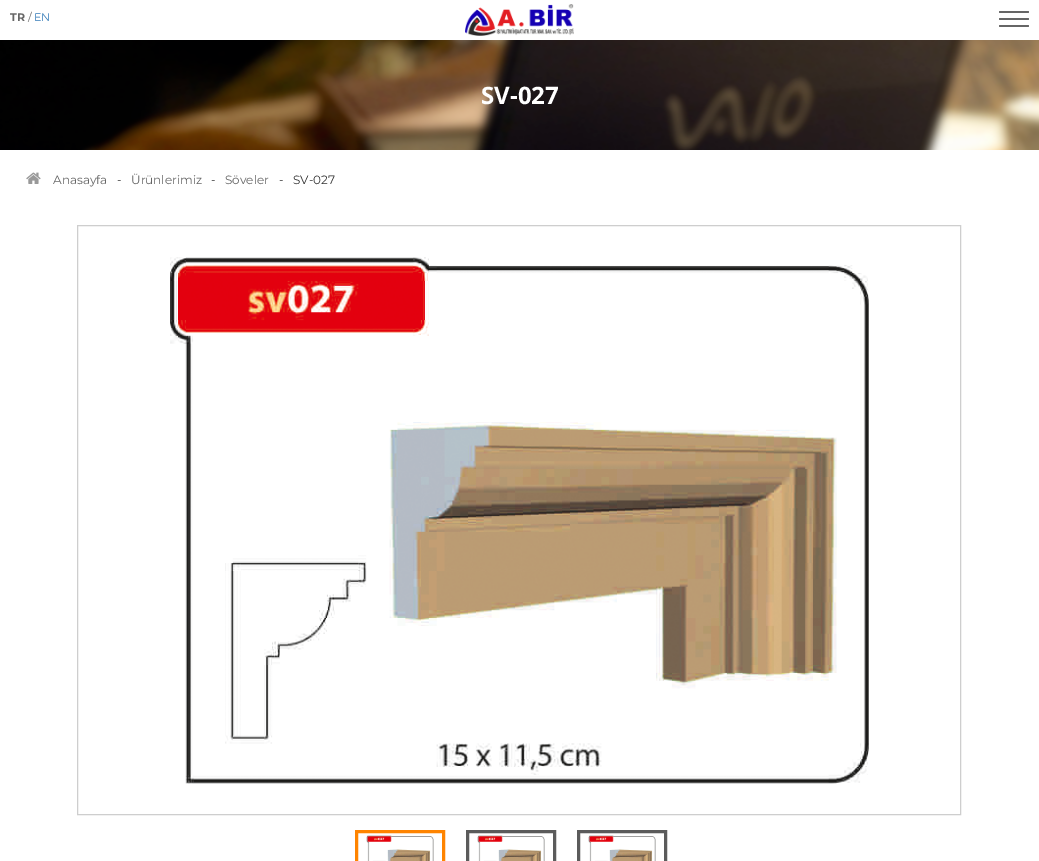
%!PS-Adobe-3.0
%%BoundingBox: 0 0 1039 861
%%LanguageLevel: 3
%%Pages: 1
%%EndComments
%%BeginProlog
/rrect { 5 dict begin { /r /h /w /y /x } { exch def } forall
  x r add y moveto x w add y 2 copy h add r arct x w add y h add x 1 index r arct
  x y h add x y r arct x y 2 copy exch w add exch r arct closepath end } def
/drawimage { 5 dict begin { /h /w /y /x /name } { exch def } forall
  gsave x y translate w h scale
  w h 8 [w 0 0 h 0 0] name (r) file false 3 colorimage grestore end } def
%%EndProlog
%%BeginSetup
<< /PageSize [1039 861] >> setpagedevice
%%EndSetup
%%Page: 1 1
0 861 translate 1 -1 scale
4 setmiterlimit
1 setgray
0 0 1039 861 rectfill
(images/1.raw) 465 4 109 32 drawimage
0.4 setgray
999 18 30 2 1 rrect fill
999 11 30 2 1 rrect fill
999 25 30 2 1 rrect fill
(images/2.raw) 0 40 1039 110 drawimage
(images/3.raw) 26 172 15 12 drawimage
0.808 setgray
77.5 225.5 883 589 rectstroke
(images/4.raw) 170 257 699 527 drawimage
1 0.518 0 setrgbcolor
3 setlinewidth
356.5 831.5 87 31 rectstroke
0.357 setgray
467.5 831.5 87 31 rectstroke
578.5 831.5 87 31 rectstroke
(images/5.raw) 366 835 68 26 drawimage
(images/6.raw) 477 835 68 26 drawimage
(images/5.raw) 588 835 68 26 drawimage
/Montserrat-Bold [11 0 0 -11 0 0] selectfont
0.4 setgray
10 21 moveto (TR) show
/Montserrat-Regular [11 0 0 -11 0 0] selectfont
28 21 moveto (/) show
0.2 0.478 0.718 setrgbcolor
34 21 moveto (EN) show
/OpenSans-Bold [24 0 0 -24 0 0] selectfont
1 setgray
481 104 moveto (SV-027) show
/Montserrat-Regular [12 0 0 -12 0 0] selectfont
0.4 setgray
53 184 moveto (Anasayfa) show
0.2 setgray
117 184 moveto (-) show
0.4 setgray
131 184 moveto (Ürünlerimiz) show
0.2 setgray
211 184 moveto (-) show
0.4 setgray
225 184 moveto (Söveler) show
0.2 setgray
279 184 moveto (-) show
293 184 moveto (SV-027) show
showpage
%%EOF
